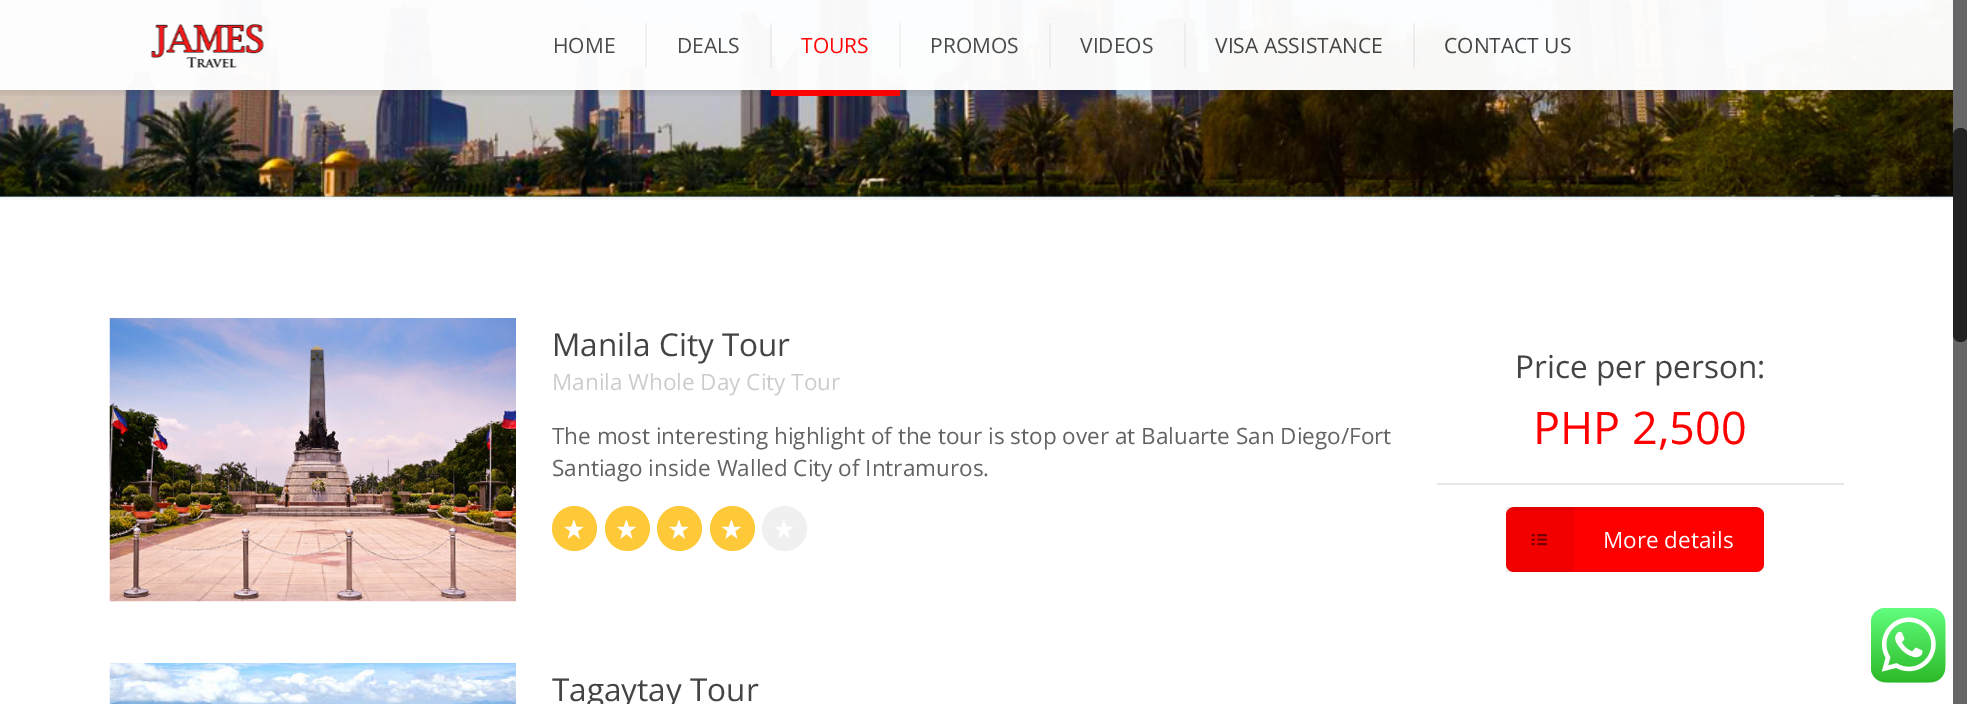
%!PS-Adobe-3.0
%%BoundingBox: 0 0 1967 704
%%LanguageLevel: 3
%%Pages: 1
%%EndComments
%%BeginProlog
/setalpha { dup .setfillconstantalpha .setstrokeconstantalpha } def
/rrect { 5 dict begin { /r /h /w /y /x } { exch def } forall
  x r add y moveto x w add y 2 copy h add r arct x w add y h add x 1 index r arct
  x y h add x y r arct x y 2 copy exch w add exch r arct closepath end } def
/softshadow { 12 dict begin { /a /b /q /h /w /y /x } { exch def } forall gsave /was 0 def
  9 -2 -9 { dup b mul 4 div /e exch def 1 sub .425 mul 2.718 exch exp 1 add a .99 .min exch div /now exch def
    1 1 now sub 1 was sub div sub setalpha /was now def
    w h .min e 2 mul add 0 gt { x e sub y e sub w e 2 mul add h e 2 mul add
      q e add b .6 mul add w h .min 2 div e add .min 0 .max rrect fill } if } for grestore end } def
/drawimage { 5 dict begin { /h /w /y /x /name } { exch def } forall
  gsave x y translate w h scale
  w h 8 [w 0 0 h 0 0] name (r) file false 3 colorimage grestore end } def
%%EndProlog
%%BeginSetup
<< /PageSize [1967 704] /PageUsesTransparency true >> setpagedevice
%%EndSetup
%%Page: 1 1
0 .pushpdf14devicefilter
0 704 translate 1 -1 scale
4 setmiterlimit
1 setgray
0 0 1967 704 rectfill
0.58 0.769 0.89 setrgbcolor
0 196 1953 1 rectfill
(images/1.raw) 0 0 1953 197 drawimage
(images/2.raw) 909 9 8 14 drawimage
(images/3.raw) 0 196 1953 4 drawimage
gsave
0 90 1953 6 rectclip
0 setgray
0 3 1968 90 0 4 0.1 softshadow
grestore
0.97 setalpha
1 setgray
0 0 1953 90 rectfill
1 setalpha
(images/4.raw) 150 24 114 44 drawimage
0.945 setgray
645 23 2 45 rectfill
0.05 setalpha
0 setgray
770 23 2 45 rectfill
1 setalpha
0.941 0.945 0.945 setrgbcolor
899 23 2 45 rectfill
0.97 setalpha
1 0 0 setrgbcolor
771 90 129 6 rectfill
1 setalpha
0.929 setgray
1049 23 2 45 rectfill
1184 23 2 45 rectfill
0.05 setalpha
0 setgray
1413 23 2 45 rectfill
1 setalpha
(images/5.raw) 109 318 407 284 drawimage
0.996 0.788 0.224 setrgbcolor
newpath 574.5 528.5 22.5 0 360 arc closepath fill
(images/6.raw) 564 519 20 20 drawimage
newpath 627.5 528.5 22.5 0 360 arc closepath fill
(images/7.raw) 616 519 21 20 drawimage
newpath 679.5 528.5 22.5 0 360 arc closepath fill
(images/6.raw) 669 519 20 20 drawimage
newpath 732.5 528.5 22.5 0 360 arc closepath fill
(images/7.raw) 721 519 21 20 drawimage
0.941 setgray
newpath 784.5 528.5 22.5 0 360 arc closepath fill
(images/8.raw) 775 520 18 19 drawimage
0.902 setgray
1437 483 407 2 rectfill
1 0 0 setrgbcolor
1506 507 258 65 8 rrect fill
(images/9.raw) 1508 507 254 4 drawimage
0.03 setalpha
0 setgray
2 setlinewidth
1507 508 256 63 rectstroke
0.05 setalpha
1506 507 68 65 rectfill
1 setalpha
(images/10.raw) 1531 534 17 12 drawimage
(images/11.raw) 109 663 407 41 drawimage
(images/12.raw) 1871 608 75 75 drawimage
0.4 setgray
1953 0 14 704 rectfill
0.133 setgray
1953 128 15 214 7.5 rrect fill
/OpenSans-Regular [21 0 0 -21 0 0] selectfont
0.29 setgray
553 53 moveto (HOME) show
677 53 moveto (DEALS) show
1 0.027 0.031 setrgbcolor
801 53 moveto (TOURS) show
0.29 setgray
930 53 moveto (PROMOS) show
1080 53 moveto (VIDEOS) show
0.267 setgray
1215 53 moveto (VISA ASSISTANCE) show
1444 53 moveto (CONTACT US) show
/OpenSans-Regular [31.5 0 0 -31.5 0 0] selectfont
552 356 moveto (Manila City Tour) show
/OpenSans-Regular [22.5 0 0 -22.5 0 0] selectfont
0.8 setgray
552 390 moveto (Manila Whole Day City Tour) show
0.384 setgray
552 444 moveto (The most interesting highlight of the tour is stop over at Baluarte San Diego/Fort) show
552 476 moveto (Santiago inside Walled City of Intramuros.) show
/OpenSans-Regular [31.5 0 0 -31.5 0 0] selectfont
0.267 setgray
1515 378 moveto (Price per person:) show
/OpenSans-Regular [45 0 0 -45 0 0] selectfont
1 0 0 setrgbcolor
1533 444 moveto (PHP 2,500) show
/OpenSans-Regular [22.5 0 0 -22.5 0 0] selectfont
1 setgray
1603 548 moveto (More details) show
/OpenSans-Regular [31.5 0 0 -31.5 0 0] selectfont
0.267 setgray
552 701 moveto (Tagaytay Tour) show
.poppdf14devicefilter showpage
%%EOF
